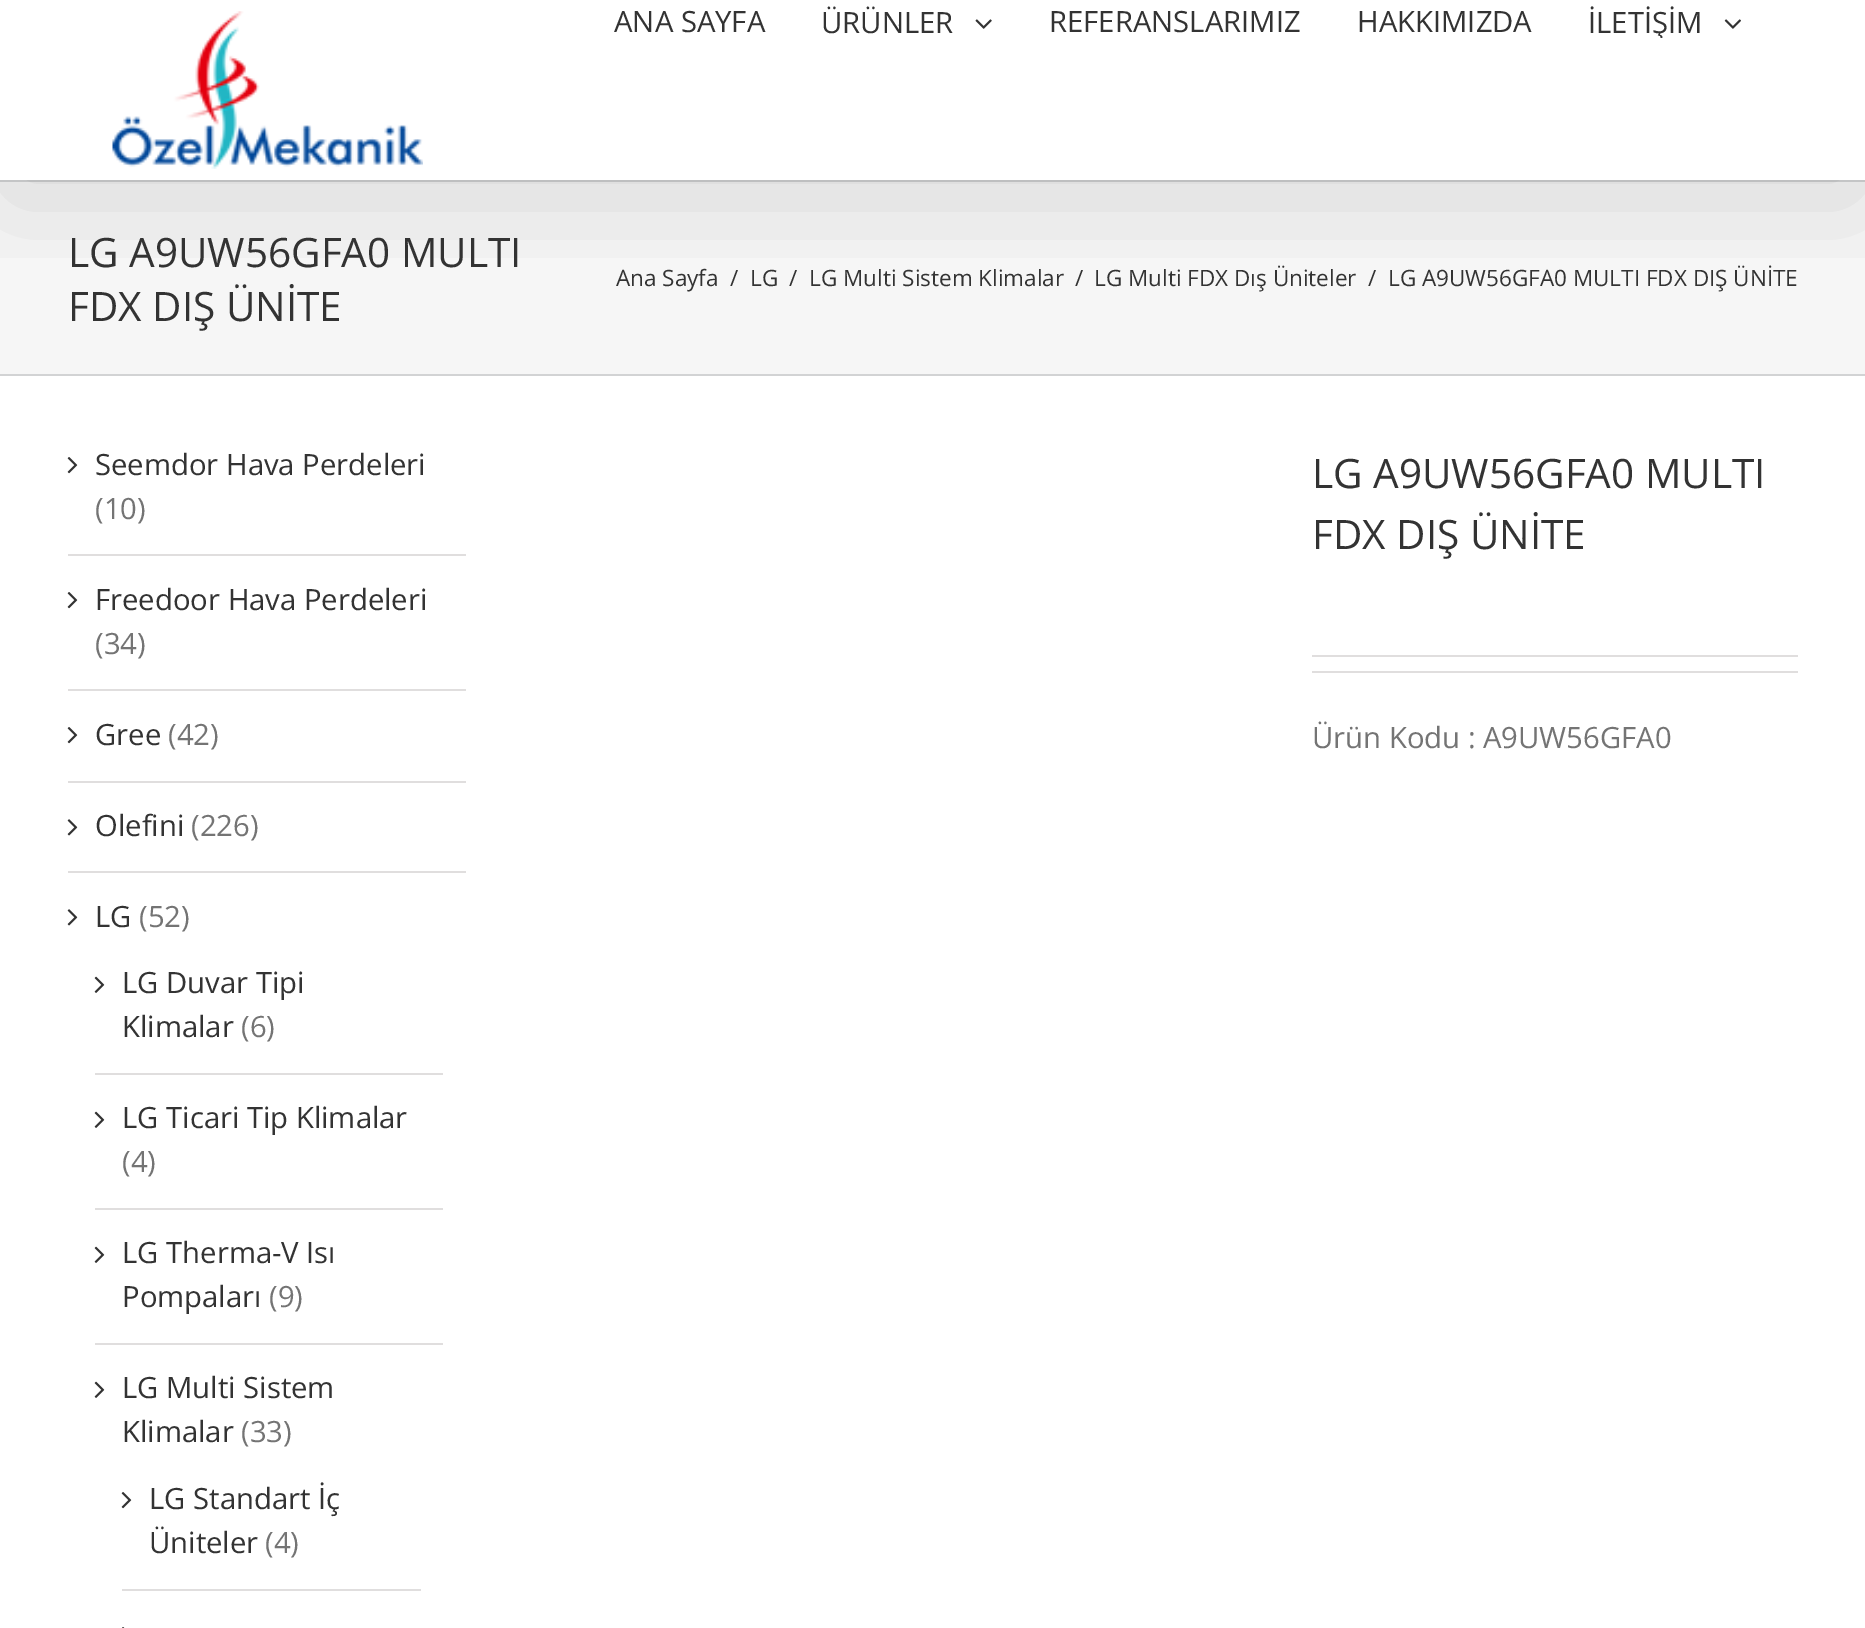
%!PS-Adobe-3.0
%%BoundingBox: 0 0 1865 1628
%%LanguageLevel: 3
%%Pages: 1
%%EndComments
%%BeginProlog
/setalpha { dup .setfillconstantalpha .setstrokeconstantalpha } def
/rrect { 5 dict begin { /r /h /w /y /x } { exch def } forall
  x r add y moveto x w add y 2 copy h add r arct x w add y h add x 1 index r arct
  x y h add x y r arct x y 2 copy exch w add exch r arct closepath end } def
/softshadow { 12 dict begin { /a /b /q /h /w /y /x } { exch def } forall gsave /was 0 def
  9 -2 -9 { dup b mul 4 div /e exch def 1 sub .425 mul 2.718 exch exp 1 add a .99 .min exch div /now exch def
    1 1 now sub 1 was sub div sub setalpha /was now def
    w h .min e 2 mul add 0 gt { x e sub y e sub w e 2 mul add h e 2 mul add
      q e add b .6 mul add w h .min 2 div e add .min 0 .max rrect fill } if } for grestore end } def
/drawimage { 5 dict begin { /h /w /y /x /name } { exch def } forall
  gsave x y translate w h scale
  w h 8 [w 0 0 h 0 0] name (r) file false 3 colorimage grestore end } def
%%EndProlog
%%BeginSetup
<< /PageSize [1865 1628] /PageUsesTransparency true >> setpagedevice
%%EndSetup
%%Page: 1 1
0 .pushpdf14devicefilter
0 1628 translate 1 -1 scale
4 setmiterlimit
1 setgray
0 0 1865 1628 rectfill
0.965 setgray
0 182 1865 192 rectfill
0.824 0.827 0.831 setrgbcolor
0 180 1865 2 rectfill
gsave
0 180 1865 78 rectclip
0 setgray
5 27 1856 171 0 56 0.14 softshadow
grestore
(images/1.raw) 112 11 311 158 drawimage
(images/2.raw) 975 19 17 10 drawimage
(images/3.raw) 1724 19 17 10 drawimage
0 374 1865 2 rectfill
0.878 0.871 0.871 setrgbcolor
68 554 398 2 rectfill
(images/4.raw) 67 457 11 17 drawimage
68 689 398 2 rectfill
(images/4.raw) 67 592 11 17 drawimage
68 781 398 2 rectfill
(images/4.raw) 67 727 11 17 drawimage
68 871 398 2 rectfill
(images/5.raw) 67 819 11 17 drawimage
(images/5.raw) 67 909 11 17 drawimage
95 1073 348 2 rectfill
(images/6.raw) 94 976 11 17 drawimage
95 1208 348 2 rectfill
(images/6.raw) 94 1111 11 17 drawimage
95 1343 348 2 rectfill
(images/6.raw) 94 1246 11 17 drawimage
(images/6.raw) 94 1381 11 17 drawimage
122 1589 299 2 rectfill
(images/4.raw) 121 1492 11 17 drawimage
(images/7.raw) 122 1627 3 1 drawimage
1312 655 486 2 rectfill
1312 671 486 2 rectfill
/OpenSans-Regular [29.25 0 0 -29.25 0 0] selectfont
0.2 setgray
614 32 moveto (ANA SAYFA) show
821 33 moveto (ÜRÜNLER) show
1049 32 moveto (REFERANSLARIMIZ) show
1357 32 moveto (HAKKIMIZDA) show
gsave
1589 0 209 38 rectclip
1588 33 moveto (İLETİŞİM) show
grestore
/OpenSans-Regular [40.5 0 0 -40.5 0 0] selectfont
68 267 moveto (LG A9UW56GFA0 MULTI) show
68 321 moveto (FDX DIŞ ÜNİTE) show
/OpenSans-Regular [22.5 0 0 -22.5 0 0] selectfont
616 286 moveto (Ana Sayfa) show
730 286 moveto (/) show
750 286 moveto (LG) show
789 286 moveto (/) show
809 286 moveto (LG Multi Sistem Klimalar) show
1075 286 moveto (/) show
1094 286 moveto (LG Multi FDX Dış Üniteler) show
1368 286 moveto (/) show
1388 286 moveto (LG A9UW56GFA0 MULTI FDX DIŞ ÜNİTE) show
/OpenSans-Regular [29.25 0 0 -29.25 0 0] selectfont
95 475 moveto (Seemdor Hava Perdeleri) show
0.455 setgray
95 519 moveto (\(10\)) show
0.2 setgray
95 610 moveto (Freedoor Hava Perdeleri) show
0.455 setgray
95 654 moveto (\(34\)) show
0.2 setgray
95 745 moveto (Gree) show
0.455 setgray
168 745 moveto (\(42\)) show
0.2 setgray
95 836 moveto (Olefini) show
0.455 setgray
191 836 moveto (\(226\)) show
0.2 setgray
95 927 moveto (LG) show
0.455 setgray
139 927 moveto (\(52\)) show
0.2 setgray
122 993 moveto (LG Duvar Tipi) show
122 1037 moveto (Klimalar) show
0.455 setgray
241 1037 moveto (\(6\)) show
0.2 setgray
122 1128 moveto (LG Ticari Tip Klimalar) show
0.455 setgray
122 1172 moveto (\(4\)) show
0.2 setgray
122 1263 moveto (LG Therma-V Isı) show
122 1307 moveto (Pompaları) show
0.455 setgray
269 1307 moveto (\(9\)) show
0.2 setgray
122 1398 moveto (LG Multi Sistem) show
122 1442 moveto (Klimalar) show
0.455 setgray
241 1442 moveto (\(33\)) show
0.2 setgray
149 1509 moveto (LG Standart İç) show
149 1553 moveto (Üniteler) show
0.455 setgray
265 1553 moveto (\(4\)) show
/OpenSans-Regular [40.5 0 0 -40.5 0 0] selectfont
0.2 setgray
1312 488 moveto (LG A9UW56GFA0 MULTI) show
1312 549 moveto (FDX DIŞ ÜNİTE) show
/OpenSans-Regular [29.25 0 0 -29.25 0 0] selectfont
0.455 setgray
1312 748 moveto (Ürün Kodu : A9UW56GFA0) show
.poppdf14devicefilter showpage
%%EOF
